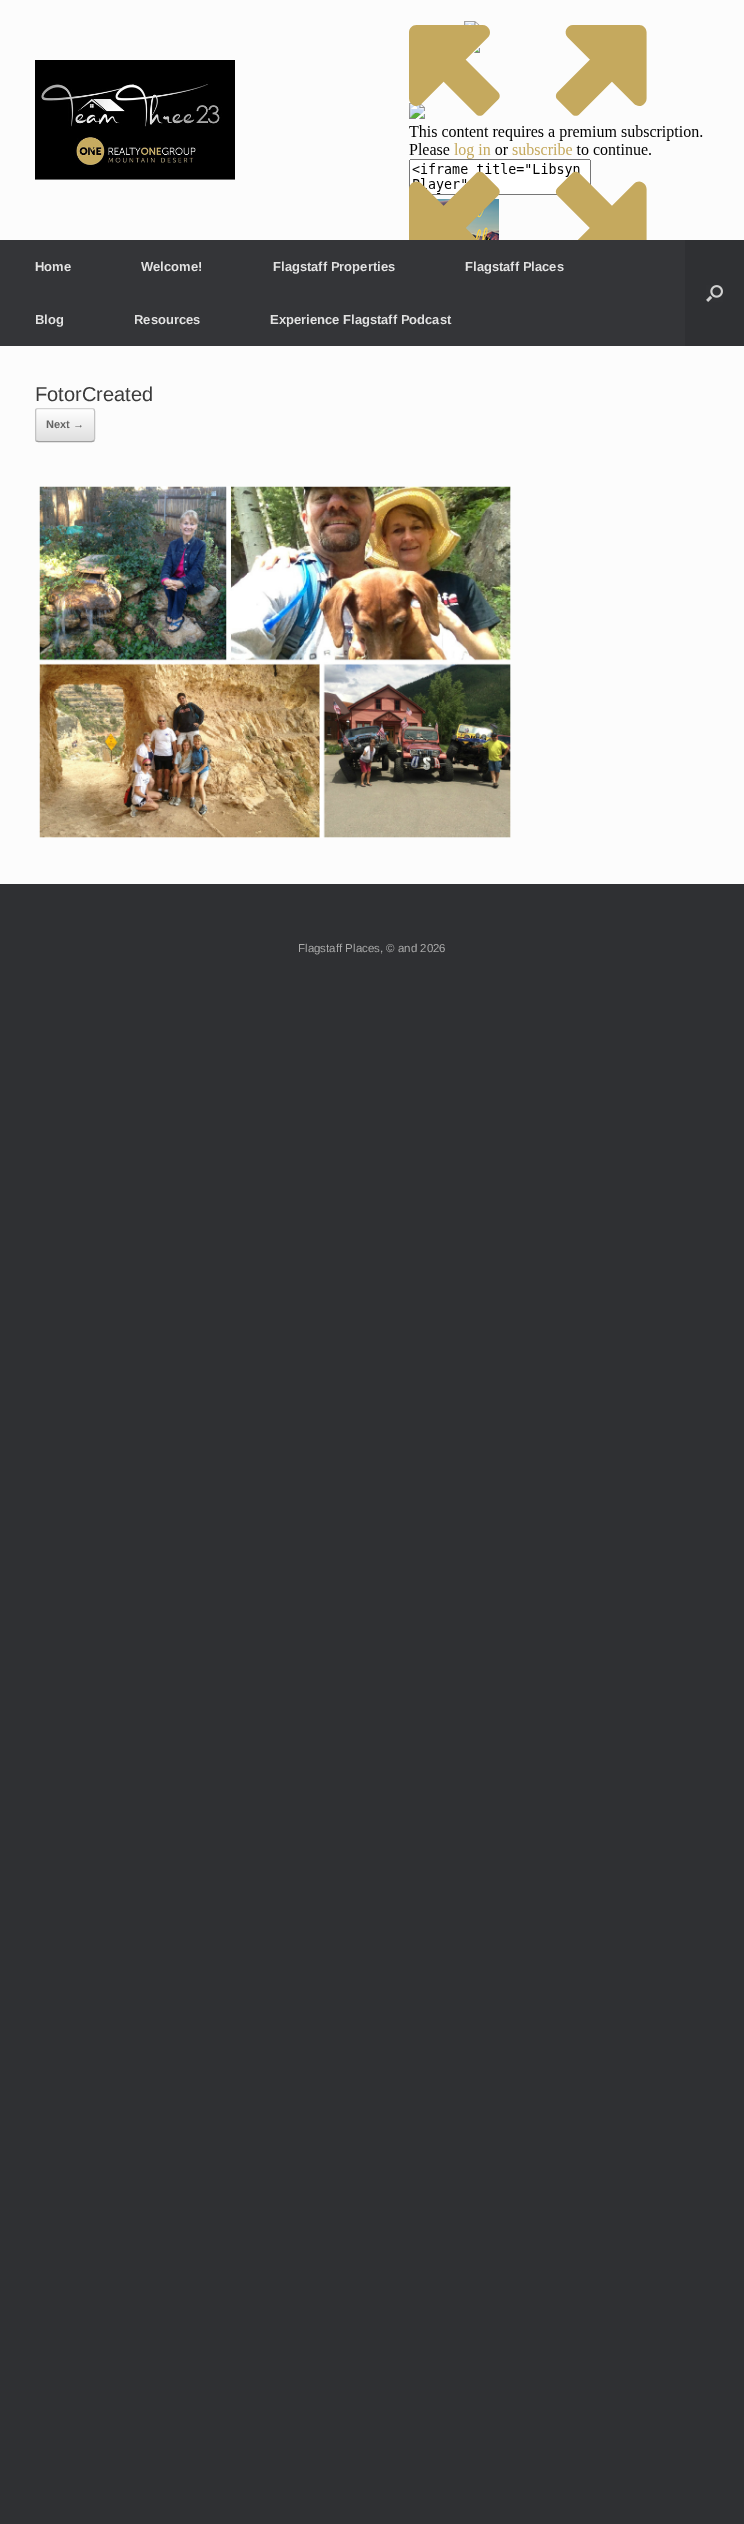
%!PS-Adobe-3.0
%%BoundingBox: 0 0 744 2524
%%LanguageLevel: 3
%%Pages: 1
%%EndComments
%%BeginProlog
/rrect { 5 dict begin { /r /h /w /y /x } { exch def } forall
  x r add y moveto x w add y 2 copy h add r arct x w add y h add x 1 index r arct
  x y h add x y r arct x y 2 copy exch w add exch r arct closepath end } def
/drawimage { 5 dict begin { /h /w /y /x /name } { exch def } forall
  gsave x y translate w h scale
  w h 8 [w 0 0 h 0 0] name (r) file false 3 colorimage grestore end } def
%%EndProlog
%%BeginSetup
<< /PageSize [744 2524] >> setpagedevice
%%EndSetup
%%Page: 1 1
0 2524 translate 1 -1 scale
4 setmiterlimit
0.184 0.188 0.2 setrgbcolor
0 0 744 2524 rectfill
0.988 setgray
0 0 744 240 rectfill
(images/1.raw) 35 60 200 120 drawimage
(images/2.raw) 409 21 294 219 drawimage
0.204 0.208 0.22 setrgbcolor
0 240 685 106 rectfill
(images/3.raw) 706 285 17 17 drawimage
0.988 setgray
0 346 744 538 rectfill
gsave
35 408 60 34 3 rrect clip newpath
gsave newpath 35 409 moveto 95 409 lineto 95 441 lineto 35 441 lineto closepath clip newpath
<< /ShadingType 2 /ColorSpace /DeviceRGB /Coords [36 441 36 409] /Extend [true true] /Function << /FunctionType 2 /Domain [0 1] /C0 [0.875 0.875 0.875] /C1 [1 1 1] /N 1 >> >> shfill grestore
grestore
0.824 setgray
newpath 36 409 moveto 38 408.5 lineto 92 408.5 lineto 94 409 lineto stroke
0.765 setgray
newpath 94 409 moveto 94 409.5 94.5 410.5 94.5 411 curveto 94.5 439 lineto 94.5 439.5 94 440.5 94 441 curveto stroke
0.624 setgray
newpath 94 441 moveto 92 441.5 lineto 38 441.5 lineto 36 441 lineto stroke
0.765 setgray
newpath 36 441 moveto 36 440.5 35.5 439.5 35.5 439 curveto 35.5 411 lineto 35.5 410.5 36 409.5 36 409 curveto stroke
(images/4.raw) 39 486 472 352 drawimage
/LiberationSans-Bold [13 0 0 -13 0 0] selectfont
0.886 setgray
35 271 moveto (Home) show
141 271 moveto (Welcome!) show
273 271 moveto (Flagstaff Properties) show
465 271 moveto (Flagstaff Places) show
35 324 moveto (Blog) show
134 324 moveto (Resources) show
270 324 moveto (Experience Flagstaff Podcast) show
/LiberationSans-Regular [20 0 0 -20 0 0] selectfont
0.231 setgray
35 401 moveto (FotorCreated) show
/LiberationSans-Bold [11 0 0 -11 0 0] selectfont
0.392 setgray
46 428 moveto (Next →) show
/LiberationSans-Regular [11.5 0 0 -11.5 0 0] selectfont
0.667 setgray
298 952 moveto (Flagstaff Places, © and 2026) show
showpage
%%EOF
